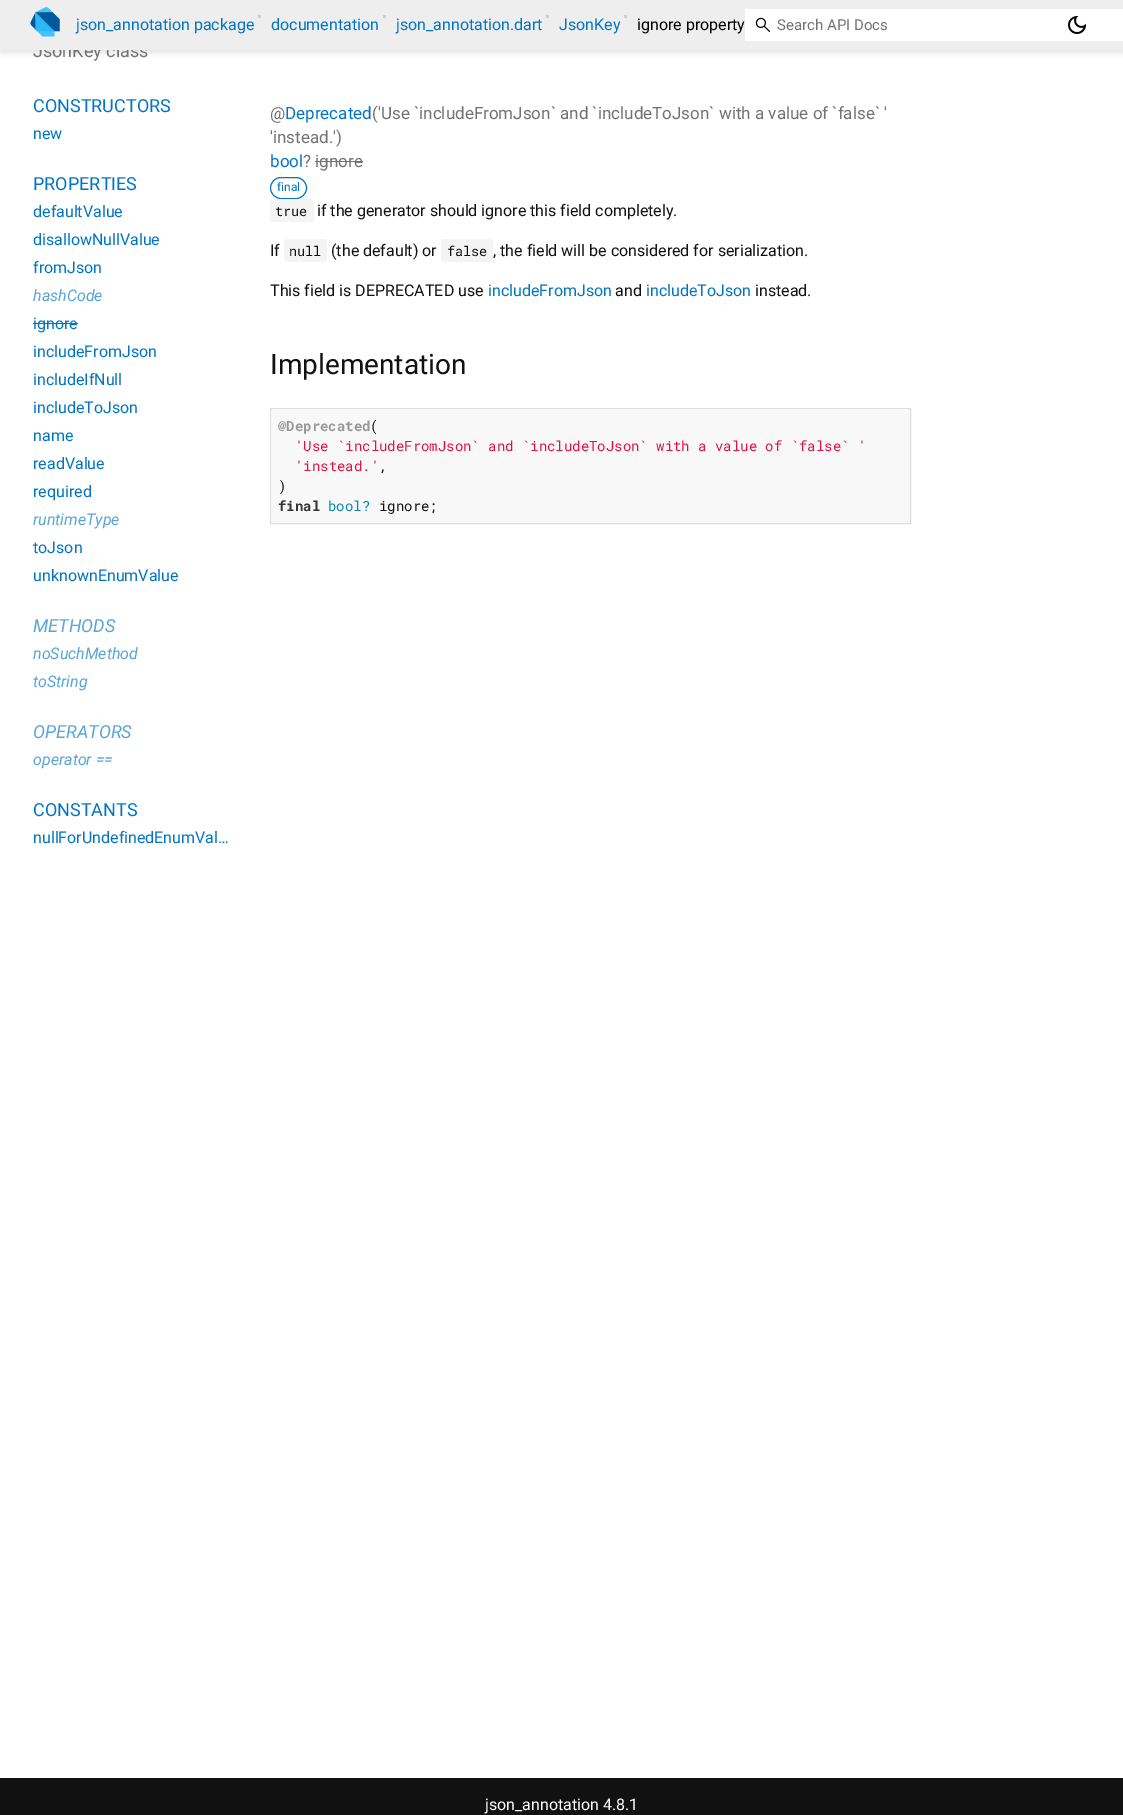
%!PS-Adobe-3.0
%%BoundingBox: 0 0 1123 1815
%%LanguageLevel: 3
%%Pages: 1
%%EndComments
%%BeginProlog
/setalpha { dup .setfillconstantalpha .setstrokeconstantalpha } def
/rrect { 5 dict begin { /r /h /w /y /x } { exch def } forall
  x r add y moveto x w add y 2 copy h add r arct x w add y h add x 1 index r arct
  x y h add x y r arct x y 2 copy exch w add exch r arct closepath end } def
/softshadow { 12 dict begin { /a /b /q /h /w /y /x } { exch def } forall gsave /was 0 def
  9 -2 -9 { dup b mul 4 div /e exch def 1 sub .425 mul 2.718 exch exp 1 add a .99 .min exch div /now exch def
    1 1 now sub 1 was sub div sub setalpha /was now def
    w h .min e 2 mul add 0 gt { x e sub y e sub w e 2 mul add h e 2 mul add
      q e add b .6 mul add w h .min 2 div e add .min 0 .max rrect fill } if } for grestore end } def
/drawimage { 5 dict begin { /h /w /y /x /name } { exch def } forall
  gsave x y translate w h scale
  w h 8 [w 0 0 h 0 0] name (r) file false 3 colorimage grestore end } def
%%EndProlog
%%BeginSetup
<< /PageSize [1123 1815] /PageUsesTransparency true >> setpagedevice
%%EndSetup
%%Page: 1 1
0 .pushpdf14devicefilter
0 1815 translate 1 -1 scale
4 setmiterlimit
1 setgray
0 0 1123 1815 rectfill
0 setgray
0 3 1123 50 0 2.5 0.1 softshadow
0.004 0.459 0.761 setrgbcolor
33 323 45 1 rectfill
0.447 setgray
315 161 48 1 rectfill
0.004 0.459 0.761 setrgbcolor
270.5 177.5 36 21 10.5 rrect stroke
0.957 setgray
270 199 44 23 3 rrect fill
284 239 43 23 3 rrect fill
441 239 52 23 3 rrect fill
0.933 setgray
newpath 270.5 408.5 moveto 910.5 408.5 lineto 910.5 523.5 lineto 270.5 523.5 lineto closepath gsave fill grestore
0.867 setgray
stroke
0.973 setgray
271 409 639 114 3 rrect fill
0.067 setgray
0 1778 1123 37 rectfill
/Roboto-Regular [18 0 0 -18 0 0] selectfont
0.447 setgray
33 57 moveto (JsonKey class) show
0.933 setgray
0 0 1123 50 rectfill
1 setgray
745 9 378 32 rectfill
(images/3.raw) 1068 16 18 18 drawimage
/Roboto-Regular [15 0 0 -15 0 0] selectfont
0.447 setgray
777 30 moveto (Search API Docs) show
(images/2.raw) 755 17 16 15 drawimage
/Roboto-Regular [16 0 0 -16 0 0] selectfont
0 setgray
637 30 moveto (ignore property) show
0.812 setgray
624 15 3 3 rectfill
0.004 0.459 0.761 setrgbcolor
559 30 moveto (JsonKey) show
0.812 setgray
546 15 3 3 rectfill
0.004 0.459 0.761 setrgbcolor
396 30 moveto (json_annotation.dart) show
0.812 setgray
383 15 3 3 rectfill
0.004 0.459 0.761 setrgbcolor
271 30 moveto (documentation) show
0.812 setgray
258 15 3 3 rectfill
0.004 0.459 0.761 setrgbcolor
76 30 moveto (json_annotation package) show
(images/1.raw) 30 7 30 30 drawimage
/Roboto-Regular [18 0 0 -18 0 0] selectfont
33 112 moveto (CONSTRUCTORS) show
/Roboto-Regular [16 0 0 -16 0 0] selectfont
33 139 moveto (new) show
/Roboto-Regular [18 0 0 -18 0 0] selectfont
33 190 moveto (PROPERTIES) show
/Roboto-Regular [16 0 0 -16 0 0] selectfont
33 217 moveto (defaultValue) show
33 245 moveto (disallowNullValue) show
33 273 moveto (fromJson) show
/Roboto-Italic [16 0 0 -16 0 0] selectfont
0.353 0.647 0.843 setrgbcolor
33 301 moveto (hashCode) show
/Roboto-Regular [16 0 0 -16 0 0] selectfont
0.004 0.459 0.761 setrgbcolor
33 329 moveto (ignore) show
33 357 moveto (includeFromJson) show
33 385 moveto (includeIfNull) show
33 413 moveto (includeToJson) show
33 441 moveto (name) show
33 469 moveto (readValue) show
33 497 moveto (required) show
/Roboto-Italic [16 0 0 -16 0 0] selectfont
0.353 0.647 0.843 setrgbcolor
33 525 moveto (runtimeType) show
/Roboto-Regular [16 0 0 -16 0 0] selectfont
0.004 0.459 0.761 setrgbcolor
33 553 moveto (toJson) show
33 581 moveto (unknownEnumValue) show
/Roboto-Italic [18 0 0 -18 0 0] selectfont
0.353 0.647 0.843 setrgbcolor
33 632 moveto (METHODS) show
/Roboto-Italic [16 0 0 -16 0 0] selectfont
33 659 moveto (noSuchMethod) show
33 687 moveto (toString) show
/Roboto-Italic [18 0 0 -18 0 0] selectfont
33 738 moveto (OPERATORS) show
/Roboto-Italic [16 0 0 -16 0 0] selectfont
33 765 moveto (operator ==) show
/Roboto-Regular [18 0 0 -18 0 0] selectfont
0.004 0.459 0.761 setrgbcolor
33 816 moveto (CONSTANTS) show
/Roboto-Regular [16 0 0 -16 0 0] selectfont
33 843 moveto (nullForUndefinedEnumVal…) show
/Roboto-Regular [17 0 0 -17 0 0] selectfont
0.447 setgray
270 119 moveto (@) show
0.004 0.459 0.761 setrgbcolor
285 119 moveto (Deprecated) show
0.447 setgray
372 119 moveto (\('Use `includeFromJson` and `includeToJson` with a value of `false` ') show
270 143 moveto ('instead.'\)) show
0.004 0.459 0.761 setrgbcolor
270 167 moveto (bool) show
0.447 setgray
303 167 moveto (? ignore) show
/Roboto-Regular [12 0 0 -12 0 0] selectfont
0.004 0.459 0.761 setrgbcolor
277 191 moveto (final) show
/RobotoMono-Regular [13.5 0 0 -13.5 0 0] selectfont
0.067 setgray
275 216 moveto (true) show
/Roboto-Regular [16 0 0 -16 0 0] selectfont
317 216 moveto (if the generator should ignore this field completely.) show
270 256 moveto (If) show
/RobotoMono-Regular [13.5 0 0 -13.5 0 0] selectfont
289 256 moveto (null) show
/Roboto-Regular [16 0 0 -16 0 0] selectfont
331 256 moveto (\(the default\) or) show
/RobotoMono-Regular [13.5 0 0 -13.5 0 0] selectfont
447 256 moveto (false) show
/Roboto-Regular [16 0 0 -16 0 0] selectfont
493 256 moveto (, the field will be considered for serialization.) show
270 296 moveto (This field is DEPRECATED use) show
0.004 0.459 0.761 setrgbcolor
488 296 moveto (includeFromJson) show
0.067 setgray
615 296 moveto (and) show
0.004 0.459 0.761 setrgbcolor
646 296 moveto (includeToJson) show
0.067 setgray
755 296 moveto (instead.) show
/Roboto-Regular [28 0 0 -28 0 0] selectfont
270 374 moveto (Implementation) show
/RobotoMono-Bold [14 0 0 -14 0 0] selectfont
0.6 setgray
278 431 moveto (@Deprecated) show
/RobotoMono-Regular [14 0 0 -14 0 0] selectfont
0.067 setgray
370 431 moveto (\() show
0.867 0.067 0.267 setrgbcolor
295 451 moveto ('Use `includeFromJson` and `includeToJson` with a value of `false` ') show
295 471 moveto ('instead.') show
0.067 setgray
379 471 moveto (,) show
278 491 moveto (\)) show
/RobotoMono-Bold [14 0 0 -14 0 0] selectfont
0.2 setgray
278 511 moveto (final) show
/RobotoMono-Regular [14 0 0 -14 0 0] selectfont
0 0.525 0.702 setrgbcolor
328 511 moveto (bool?) show
0.067 setgray
379 511 moveto (ignore;) show
/Roboto-Regular [16 0 0 -16 0 0] selectfont
1 setgray
485 1810 moveto (json_annotation 4.8.1) show
.poppdf14devicefilter showpage
%%EOF
